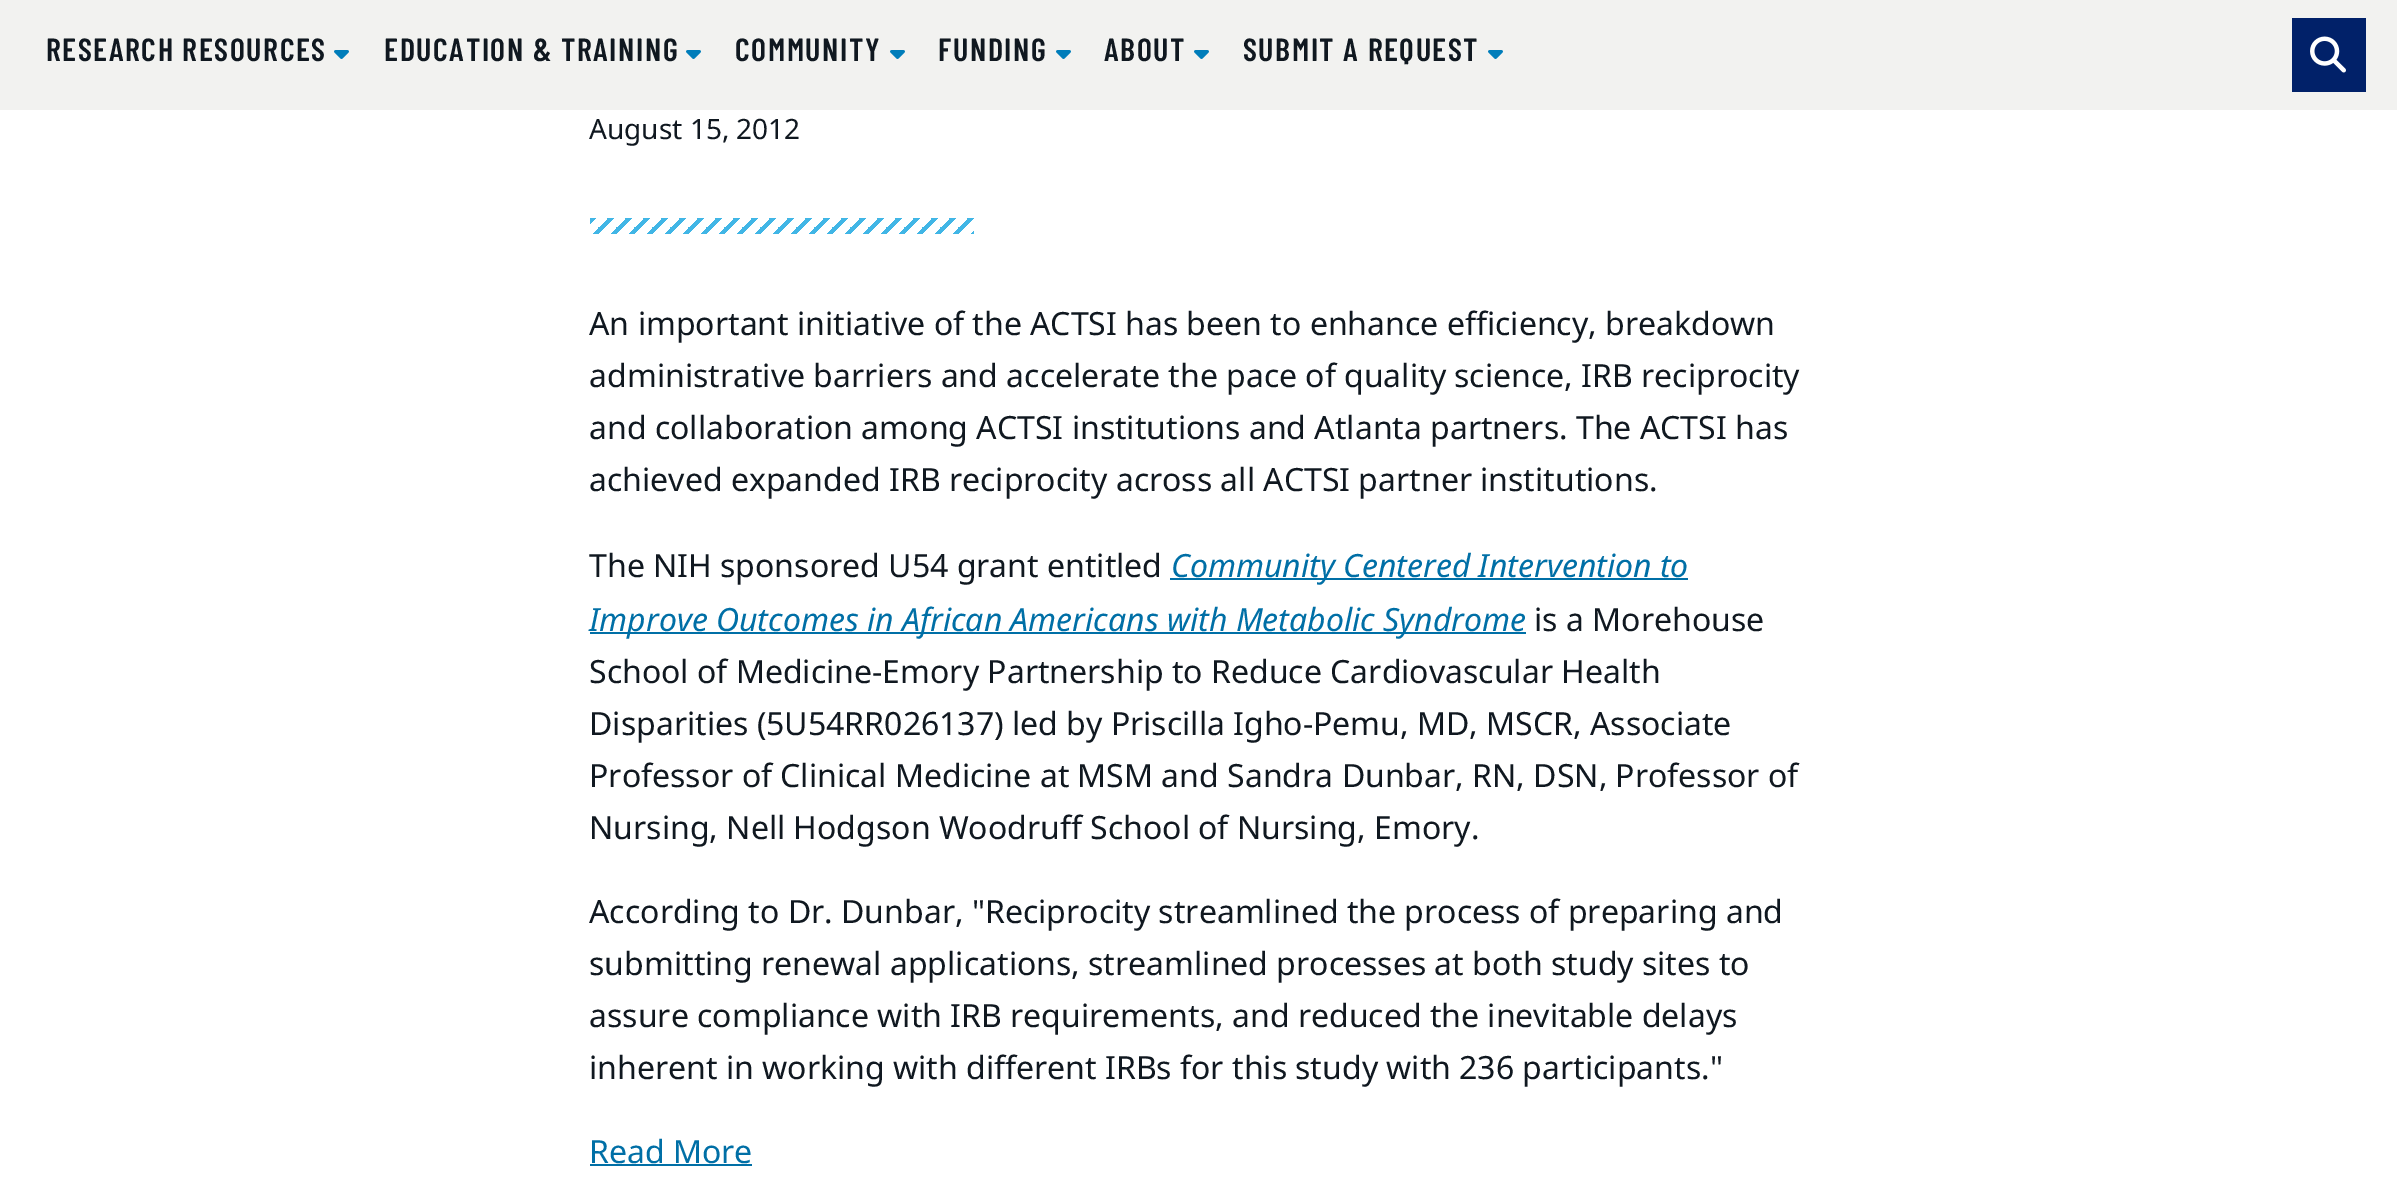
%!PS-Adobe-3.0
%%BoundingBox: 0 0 2397 1198
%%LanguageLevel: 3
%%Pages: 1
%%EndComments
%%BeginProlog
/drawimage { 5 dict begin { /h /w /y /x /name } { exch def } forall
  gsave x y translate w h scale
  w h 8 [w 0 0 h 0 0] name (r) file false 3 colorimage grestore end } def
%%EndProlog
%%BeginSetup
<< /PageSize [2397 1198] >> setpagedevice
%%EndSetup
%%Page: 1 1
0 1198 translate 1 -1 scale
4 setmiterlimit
1 setgray
0 0 2397 1198 rectfill
0.949 0.949 0.941 setrgbcolor
0 0 2397 110 rectfill
(images/1.raw) 334 50 15 9 drawimage
(images/1.raw) 686 50 15 9 drawimage
(images/1.raw) 890 50 15 9 drawimage
(images/1.raw) 1056 50 15 9 drawimage
(images/1.raw) 1194 50 15 9 drawimage
(images/1.raw) 1488 50 15 9 drawimage
0.004 0.129 0.412 setrgbcolor
2292 18 74 74 rectfill
(images/2.raw) 2310 36 36 37 drawimage
(images/3.raw) 590 218 384 16 drawimage
0 0.435 0.651 setrgbcolor
1170 578 518 2 rectfill
590 632 936 2 rectfill
590 1164 162 2 rectfill
/BarlowCondensed-SemiBold [32 0 0 -32 0 0] selectfont
0.063 0.094 0.125 setrgbcolor
46 61 moveto 1.6 0 (RESEARCH RESOURCES) ashow
384 61 moveto 1.6 0 (EDUCATION & TRAINING) ashow
735 61 moveto 1.6 0 (COMMUNITY) ashow
938 61 moveto 1.6 0 (FUNDING) ashow
1104 61 moveto 1.6 0 (ABOUT) ashow
1243 61 moveto 1.6 0 (SUBMIT A REQUEST) ashow
/NotoSans-Regular [28 0 0 -28 0 0] selectfont
589 139 moveto (August 15, 2012) show
/NotoSans-Regular [32 0 0 -32 0 0] selectfont
589 335 moveto (An important initiative of the ACTSI has been to enhance efficiency, breakdown) show
589 387 moveto (administrative barriers and accelerate the pace of quality science, IRB reciprocity) show
589 439 moveto (and collaboration among ACTSI institutions and Atlanta partners. The ACTSI has) show
589 491 moveto (achieved expanded IRB reciprocity across all ACTSI partner institutions.) show
589 577 moveto (The NIH sponsored U54 grant entitled) show
/NotoSans-Italic [32 0 0 -32 0 0] selectfont
0 0.435 0.651 setrgbcolor
1171 577 moveto (Community Centered Intervention to) show
589 631 moveto (Improve Outcomes in African Americans with Metabolic Syndrome) show
/NotoSans-Regular [32 0 0 -32 0 0] selectfont
0.063 0.094 0.125 setrgbcolor
1534 631 moveto (is a Morehouse) show
589 683 moveto (School of Medicine-Emory Partnership to Reduce Cardiovascular Health) show
589 735 moveto (Disparities \(5U54RR026137\) led by Priscilla Igho-Pemu, MD, MSCR, Associate) show
589 787 moveto (Professor of Clinical Medicine at MSM and Sandra Dunbar, RN, DSN, Professor of) show
589 839 moveto (Nursing, Nell Hodgson Woodruff School of Nursing, Emory.) show
589 923 moveto (According to Dr. Dunbar, "Reciprocity streamlined the process of preparing and) show
589 975 moveto (submitting renewal applications, streamlined processes at both study sites to) show
589 1027 moveto (assure compliance with IRB requirements, and reduced the inevitable delays) show
589 1079 moveto (inherent in working with different IRBs for this study with 236 participants.") show
0 0.435 0.651 setrgbcolor
589 1163 moveto (Read More) show
showpage
%%EOF
